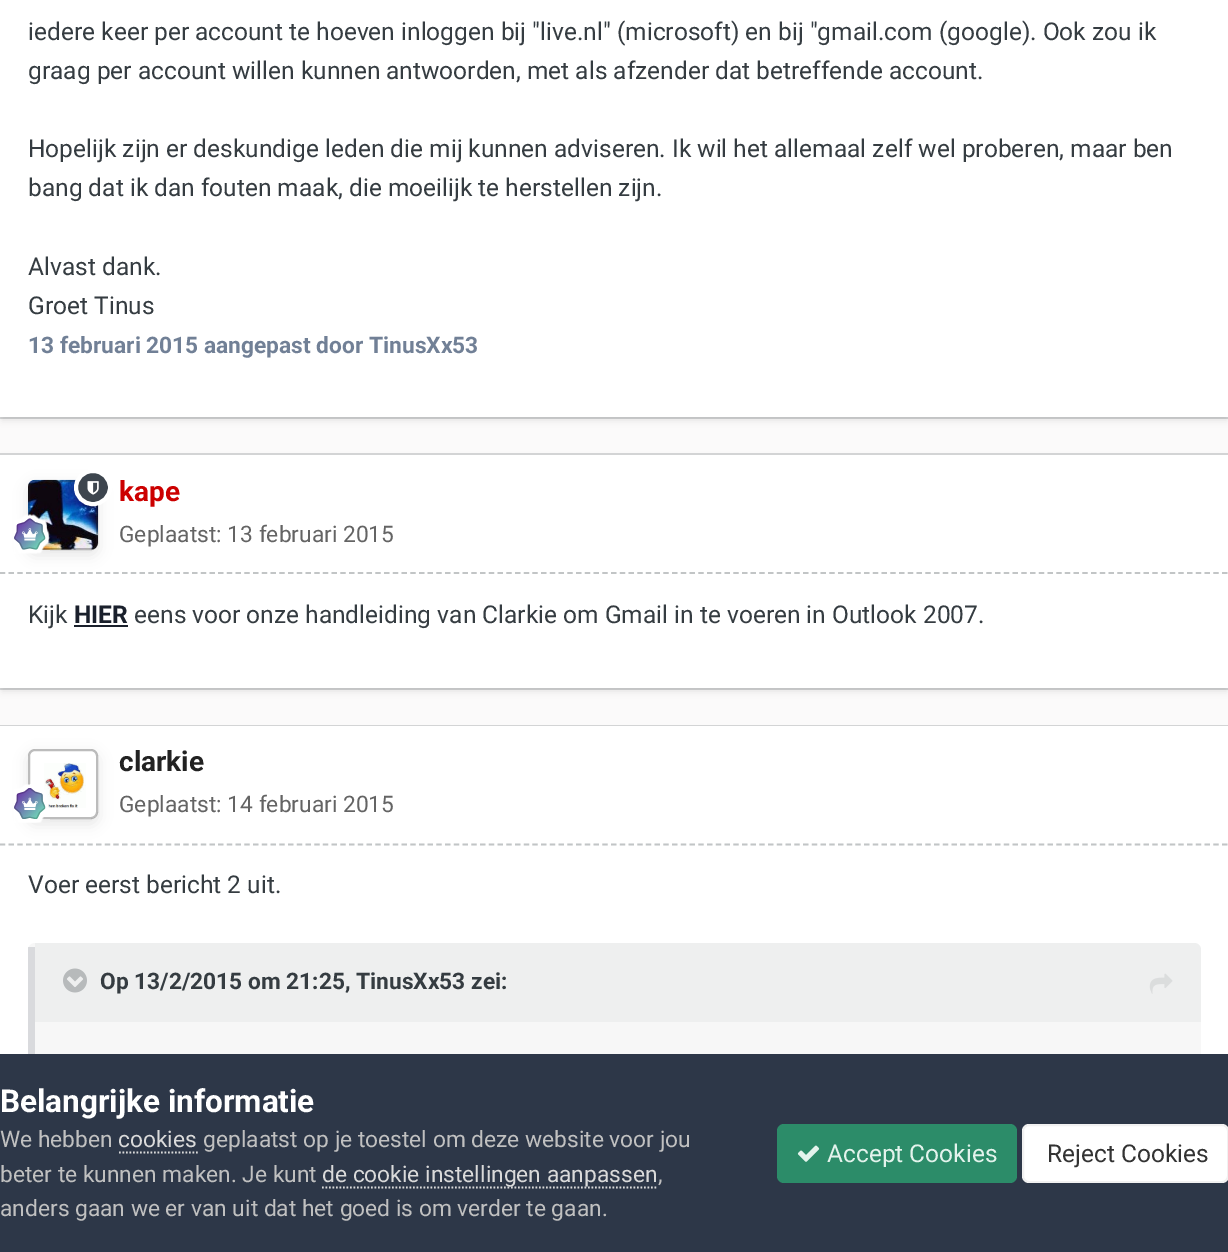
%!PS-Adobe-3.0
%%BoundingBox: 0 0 1228 1252
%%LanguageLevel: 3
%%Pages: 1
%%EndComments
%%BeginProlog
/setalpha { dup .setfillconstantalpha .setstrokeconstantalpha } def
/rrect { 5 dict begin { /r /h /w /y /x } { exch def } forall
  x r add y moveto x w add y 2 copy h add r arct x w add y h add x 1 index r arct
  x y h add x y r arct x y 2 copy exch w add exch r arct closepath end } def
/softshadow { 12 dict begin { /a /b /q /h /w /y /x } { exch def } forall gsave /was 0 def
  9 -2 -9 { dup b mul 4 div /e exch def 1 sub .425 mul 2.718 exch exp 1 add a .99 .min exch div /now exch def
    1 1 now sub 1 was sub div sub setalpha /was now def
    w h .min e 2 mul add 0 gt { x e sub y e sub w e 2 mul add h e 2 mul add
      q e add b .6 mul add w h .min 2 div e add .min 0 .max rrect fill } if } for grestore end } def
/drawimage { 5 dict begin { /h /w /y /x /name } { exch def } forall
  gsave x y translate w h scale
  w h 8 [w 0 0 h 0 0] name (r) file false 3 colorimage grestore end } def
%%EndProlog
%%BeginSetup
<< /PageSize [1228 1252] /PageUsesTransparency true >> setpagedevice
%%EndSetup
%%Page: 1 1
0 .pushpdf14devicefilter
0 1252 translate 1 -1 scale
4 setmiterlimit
0.984 0.98 0.98 setrgbcolor
0 0 1228 1252 rectfill
0.827 0.831 0.835 setrgbcolor
0 725 1228 1 rectfill
0 setgray
2 -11 1225 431 0 3.5 0.1 softshadow
1 setgray
0 0 1228 417 rectfill
0.2 setalpha
0.208 0.235 0.255 setrgbcolor
0 417 1228 2 rectfill
1 setalpha
0 setgray
2 459 1225 232 0 3.5 0.1 softshadow
1 setgray
0 455 1228 233 rectfill
0.827 0.831 0.835 setrgbcolor
0 453 1228 2 rectfill
0.2 setalpha
0.208 0.235 0.255 setrgbcolor
0 688 1228 2 rectfill
1 setalpha
0.761 0.773 0.776 setrgbcolor
1.8 setlinewidth
[5.25 3.48] 0 setdash
newpath 0 573 moveto 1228.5 573 lineto stroke
(images/1.raw) 28 479 70 71 drawimage
gsave
newpath 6 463 moveto 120 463 lineto 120 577 lineto 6 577 lineto closepath 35 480 moveto 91 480 lineto 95 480 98 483 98 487 curveto 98 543 lineto 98 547 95 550 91 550 curveto 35 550 lineto 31 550 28 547 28 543 curveto 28 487 lineto 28 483 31 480 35 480 curveto closepath eoclip newpath
0 setgray
28 485 70 70 7 7 0.1 softshadow
grestore
0.3 setalpha
0.133 setgray
2 setlinewidth
[] 0 setdash
29 481 68 68 6 rrect stroke
1 setalpha
0.239 0.271 0.306 setrgbcolor
76 471 34 33 16.5 rrect gsave fill grestore
1 setgray
4 setlinewidth
stroke
(images/2.raw) 87 481 12 14 drawimage
(images/3.raw) 14 514 36 40 drawimage
0.102 0.125 0.173 setrgbcolor
74 625 54 2 rectfill
1 setgray
0 726 1228 328 rectfill
0.761 0.773 0.776 setrgbcolor
1.8 setlinewidth
[5.25 3.48] 0 setdash
newpath 0 844.5 moveto 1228.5 844.5 lineto stroke
(images/4.raw) 44 763 42 45 drawimage
gsave
newpath 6 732 moveto 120 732 lineto 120 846 lineto 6 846 lineto closepath 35 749 moveto 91 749 lineto 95 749 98 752 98 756 curveto 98 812 lineto 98 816 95 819 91 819 curveto 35 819 lineto 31 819 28 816 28 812 curveto 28 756 lineto 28 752 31 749 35 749 curveto closepath eoclip newpath
0 setgray
28 754 70 70 7 7 0.1 softshadow
grestore
0.3 setalpha
0.133 setgray
2 setlinewidth
[] 0 setdash
29 750 68 68 6 rrect stroke
1 setalpha
(images/5.raw) 14 784 36 39 drawimage
0.969 setgray
28 943 1173 245 7 rrect fill
0.15 setalpha
0.176 0.216 0.282 setrgbcolor
28 947 7 107 rectfill
1 setalpha
0.933 0.937 0.937 setrgbcolor
newpath 35 943 moveto 1194 943 lineto 1198 943 1201 946 1201 950 curveto 1201 1022 lineto 35 1022 lineto closepath fill
(images/6.raw) 63 968 24 25 drawimage
(images/7.raw) 1149 973 24 21 drawimage
0.176 0.216 0.282 setrgbcolor
0 1054 1228 198 rectfill
0.855 setgray
1.8 setlinewidth
[1.75 1.75] 0 setdash
newpath 119 1152.5 moveto 198 1152.5 lineto stroke
newpath 322 1187.5 moveto 658 1187.5 lineto stroke
0.173 0.549 0.412 setrgbcolor
777 1124 240 59 7 rrect fill
(images/8.raw) 797 1145 23 17 drawimage
1 setgray
1022 1124 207 59 7 rrect fill
0.07 setalpha
0.2 setgray
2 setlinewidth
[] 0 setdash
1023 1125 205 57 6 rrect stroke
/Roboto-Regular [24.5 0 0 -24.5 0 0] selectfont
1 setalpha
0.208 0.235 0.255 setrgbcolor
28 40 moveto (iedere keer per account te hoeven inloggen bij "live.nl" \(microsoft\) en bij "gmail.com \(google\). Ook zou ik) show
28 79 moveto (graag per account willen kunnen antwoorden, met als afzender dat betreffende account.) show
28 157 moveto (Hopelijk zijn er deskundige leden die mij kunnen adviseren. Ik wil het allemaal zelf wel proberen, maar ben) show
28 196 moveto (bang dat ik dan fouten maak, die moeilijk te herstellen zijn.) show
28 275 moveto (Alvast dank.) show
28 314 moveto (Groet Tinus) show
/Roboto-Bold [22.75 0 0 -22.75 0 0] selectfont
0.443 0.502 0.588 setrgbcolor
28 353 moveto (13 februari 2015 aangepast door TinusXx53) show
/Roboto-Bold [28 0 0 -28 0 0] selectfont
0.8 0 0 setrgbcolor
119 501 moveto (kape) show
/Roboto-Regular [22.75 0 0 -22.75 0 0] selectfont
0.392 setgray
119 542 moveto (Geplaatst: 13 februari 2015) show
/Roboto-Regular [24.5 0 0 -24.5 0 0] selectfont
0.208 0.235 0.255 setrgbcolor
28 623 moveto (Kijk) show
/Roboto-Bold [24.5 0 0 -24.5 0 0] selectfont
0.102 0.125 0.173 setrgbcolor
74 623 moveto (HIER) show
/Roboto-Regular [24.5 0 0 -24.5 0 0] selectfont
0.208 0.235 0.255 setrgbcolor
134 623 moveto (eens voor onze handleiding van Clarkie om Gmail in te voeren in Outlook 2007.) show
/Roboto-Bold [28 0 0 -28 0 0] selectfont
0.133 setgray
119 771 moveto (clarkie) show
/Roboto-Regular [22.75 0 0 -22.75 0 0] selectfont
0.392 setgray
119 812 moveto (Geplaatst: 14 februari 2015) show
/Roboto-Regular [24.5 0 0 -24.5 0 0] selectfont
0.208 0.235 0.255 setrgbcolor
28 893 moveto (Voer eerst bericht 2 uit.) show
/Roboto-Bold [22.75 0 0 -22.75 0 0] selectfont
100 989 moveto (Op 13/2/2015 om 21:25, TinusXx53 zei:) show
/Roboto-Bold [31.5 0 0 -31.5 0 0] selectfont
1 setgray
0 1112 moveto (Belangrijke informatie) show
/Roboto-Regular [22.75 0 0 -22.75 0 0] selectfont
0.753 setgray
0 1147 moveto (We hebben) show
0.855 setgray
118 1147 moveto (cookies) show
0.753 setgray
203 1147 moveto (geplaatst op je toestel om deze website voor jou) show
0 1182 moveto (beter te kunnen maken. Je kunt) show
0.855 setgray
322 1182 moveto (de cookie instellingen aanpassen) show
0.753 setgray
658 1182 moveto (,) show
0 1216 moveto (anders gaan we er van uit dat het goed is om verder te gaan.) show
/Roboto-Regular [24.5 0 0 -24.5 0 0] selectfont
0.89 0.953 0.925 setrgbcolor
827 1162 moveto (Accept Cookies) show
0.2 setgray
1047 1162 moveto (Reject Cookies) show
.poppdf14devicefilter showpage
%%EOF
